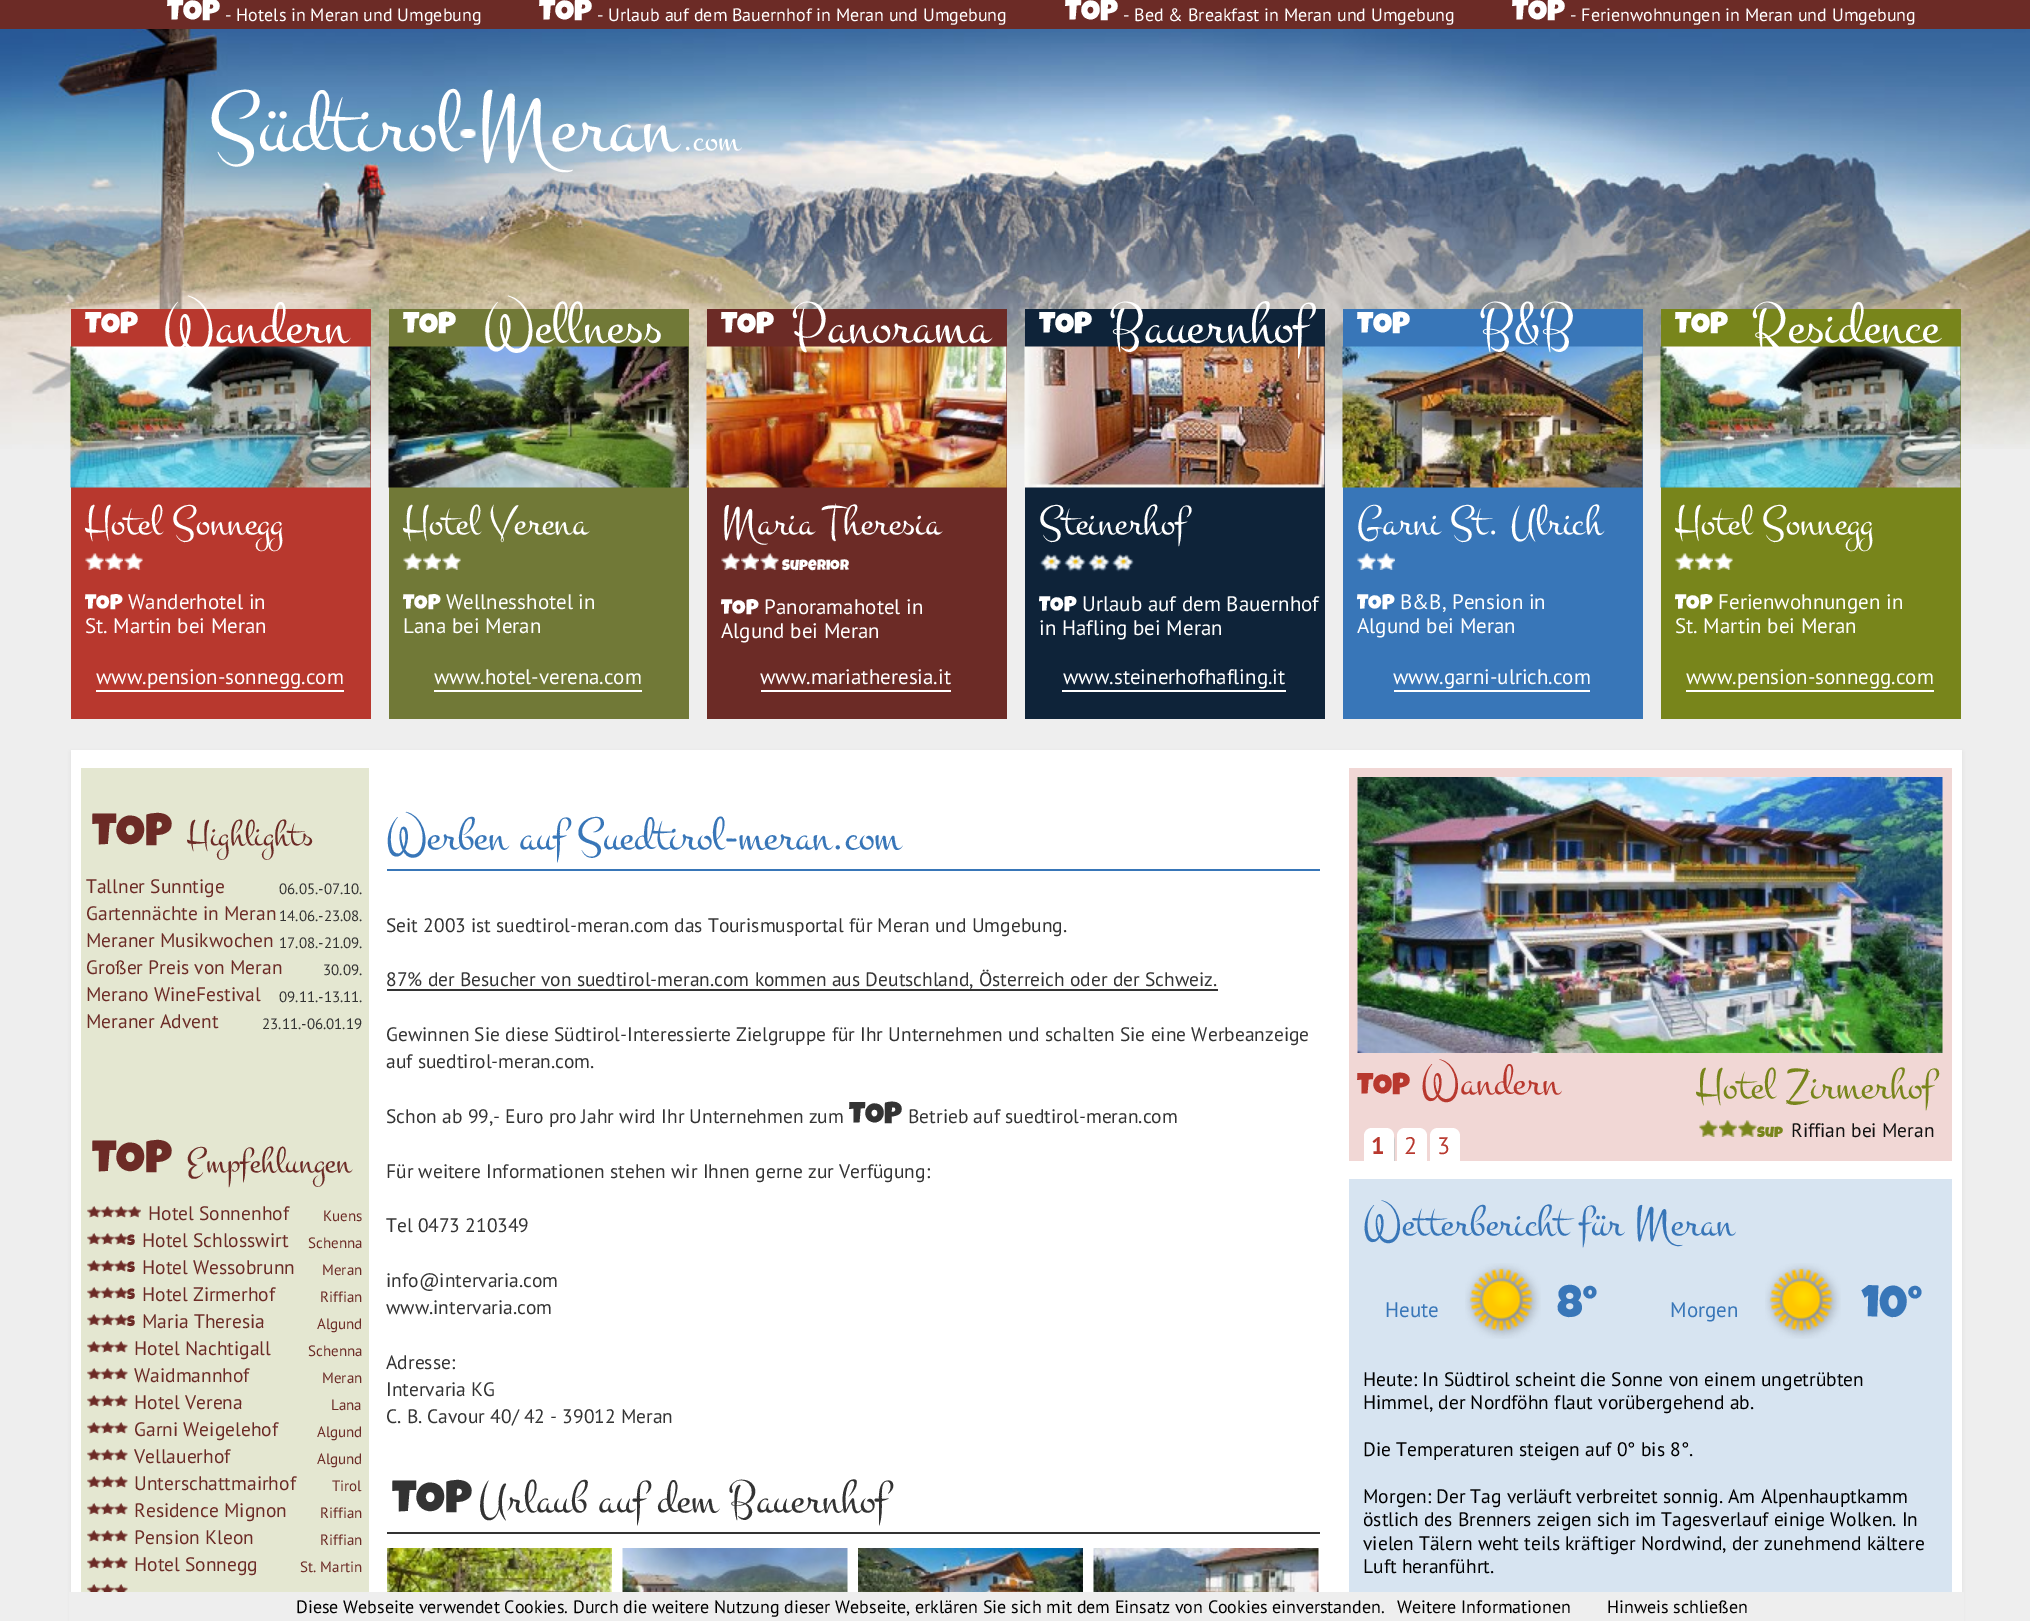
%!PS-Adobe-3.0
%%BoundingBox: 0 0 2030 1621
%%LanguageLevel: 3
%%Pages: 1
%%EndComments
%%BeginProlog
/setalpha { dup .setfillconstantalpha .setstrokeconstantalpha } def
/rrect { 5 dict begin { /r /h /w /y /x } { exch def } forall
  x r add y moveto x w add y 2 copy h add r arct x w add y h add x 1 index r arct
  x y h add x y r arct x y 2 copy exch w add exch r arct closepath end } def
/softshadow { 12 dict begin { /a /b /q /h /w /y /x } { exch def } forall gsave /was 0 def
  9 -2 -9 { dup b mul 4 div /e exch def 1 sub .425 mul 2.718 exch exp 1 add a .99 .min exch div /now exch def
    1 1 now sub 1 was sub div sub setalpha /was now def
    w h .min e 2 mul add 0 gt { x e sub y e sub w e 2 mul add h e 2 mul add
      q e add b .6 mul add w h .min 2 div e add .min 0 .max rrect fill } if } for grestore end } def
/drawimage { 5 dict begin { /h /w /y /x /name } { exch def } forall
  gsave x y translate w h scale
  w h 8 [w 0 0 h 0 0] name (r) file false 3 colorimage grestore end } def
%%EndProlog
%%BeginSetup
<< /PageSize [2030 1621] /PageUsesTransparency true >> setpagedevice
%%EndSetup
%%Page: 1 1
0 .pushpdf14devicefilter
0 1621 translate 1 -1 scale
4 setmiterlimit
0.933 setgray
0 0 2030 1621 rectfill
(images/1.raw) 0 29 2030 420 drawimage
0.424 0.169 0.149 setrgbcolor
0 0 2030 29 rectfill
0.722 0.22 0.18 setrgbcolor
71 309 300 410 rectfill
(images/3.raw) 70 346 301 142 drawimage
(images/4.raw) 85 553 19 17 drawimage
(images/5.raw) 105 553 18 17 drawimage
(images/4.raw) 124 553 19 17 drawimage
1 setgray
96 690 248 2 rectfill
0.443 0.475 0.216 setrgbcolor
389 309 300 410 rectfill
(images/6.raw) 388 346 301 142 drawimage
(images/7.raw) 403 553 19 17 drawimage
(images/8.raw) 423 553 18 17 drawimage
(images/7.raw) 442 553 19 17 drawimage
1 setgray
434 690 208 2 rectfill
0.424 0.169 0.149 setrgbcolor
707 309 300 410 rectfill
(images/9.raw) 706 346 301 142 drawimage
(images/10.raw) 721 553 19 17 drawimage
(images/11.raw) 741 553 18 17 drawimage
(images/12.raw) 760 553 19 17 drawimage
1 setgray
761 690 190 2 rectfill
0.055 0.137 0.224 setrgbcolor
1025 309 300 410 rectfill
(images/13.raw) 1024 346 301 142 drawimage
(images/14.raw) 1039 553 23 19 drawimage
(images/14.raw) 1063 553 23 19 drawimage
(images/14.raw) 1087 553 23 19 drawimage
(images/14.raw) 1111 553 23 19 drawimage
1 setgray
1062 690 224 2 rectfill
0.22 0.463 0.722 setrgbcolor
1343 309 300 410 rectfill
(images/15.raw) 1342 346 301 142 drawimage
(images/16.raw) 1357 553 19 17 drawimage
(images/17.raw) 1377 553 18 17 drawimage
1 setgray
1394 690 196 2 rectfill
0.471 0.522 0.106 setrgbcolor
1661 309 300 410 rectfill
(images/18.raw) 1660 346 301 142 drawimage
(images/19.raw) 1675 553 19 17 drawimage
(images/20.raw) 1695 553 18 17 drawimage
(images/19.raw) 1714 553 19 17 drawimage
1 setgray
1686 690 248 2 rectfill
0.867 setgray
71 752 1891 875 0 2 1 softshadow
1 setgray
71 750 1891 842 rectfill
0.894 0.906 0.82 setrgbcolor
81 768 288 824 rectfill
(images/21.raw) 87 1206 14 12 drawimage
(images/22.raw) 100 1206 14 12 drawimage
(images/21.raw) 114 1206 14 12 drawimage
(images/22.raw) 127 1206 14 12 drawimage
(images/21.raw) 87 1233 14 12 drawimage
(images/22.raw) 100 1233 14 12 drawimage
(images/21.raw) 114 1233 14 12 drawimage
(images/21.raw) 87 1260 14 12 drawimage
(images/22.raw) 100 1260 14 12 drawimage
(images/21.raw) 114 1260 14 12 drawimage
(images/23.raw) 87 1287 14 12 drawimage
(images/24.raw) 100 1287 14 12 drawimage
(images/23.raw) 114 1287 14 12 drawimage
(images/21.raw) 87 1314 14 12 drawimage
(images/22.raw) 100 1314 14 12 drawimage
(images/21.raw) 114 1314 14 12 drawimage
(images/21.raw) 87 1341 14 12 drawimage
(images/22.raw) 100 1341 14 12 drawimage
(images/21.raw) 114 1341 14 12 drawimage
(images/21.raw) 87 1368 14 12 drawimage
(images/22.raw) 100 1368 14 12 drawimage
(images/21.raw) 114 1368 14 12 drawimage
(images/21.raw) 87 1395 14 12 drawimage
(images/22.raw) 100 1395 14 12 drawimage
(images/21.raw) 114 1395 14 12 drawimage
(images/21.raw) 87 1422 14 12 drawimage
(images/22.raw) 100 1422 14 12 drawimage
(images/21.raw) 114 1422 14 12 drawimage
(images/21.raw) 87 1449 14 12 drawimage
(images/22.raw) 100 1449 14 12 drawimage
(images/21.raw) 114 1449 14 12 drawimage
(images/21.raw) 87 1476 14 12 drawimage
(images/22.raw) 100 1476 14 12 drawimage
(images/21.raw) 114 1476 14 12 drawimage
(images/21.raw) 87 1503 14 12 drawimage
(images/22.raw) 100 1503 14 12 drawimage
(images/21.raw) 114 1503 14 12 drawimage
(images/25.raw) 87 1530 14 12 drawimage
(images/26.raw) 100 1530 14 12 drawimage
(images/25.raw) 114 1530 14 12 drawimage
(images/21.raw) 87 1557 14 12 drawimage
(images/22.raw) 100 1557 14 12 drawimage
(images/21.raw) 114 1557 14 12 drawimage
(images/27.raw) 87 1584 14 8 drawimage
(images/28.raw) 100 1584 14 8 drawimage
(images/27.raw) 114 1584 14 8 drawimage
0.22 0.463 0.722 setrgbcolor
387 869 933 2 rectfill
0.2 setgray
387 989 831 2 rectfill
387 1532 933 2 rectfill
(images/29.raw) 387 1548 225 44 drawimage
(images/30.raw) 622 1548 226 44 drawimage
(images/31.raw) 858 1548 225 44 drawimage
(images/32.raw) 1093 1548 226 44 drawimage
0.945 0.843 0.835 setrgbcolor
1349 768 603 393 rectfill
(images/33.raw) 1357 777 586 276 drawimage
(images/34.raw) 1699 1120 19 17 drawimage
(images/35.raw) 1719 1120 18 17 drawimage
(images/34.raw) 1738 1120 19 17 drawimage
gsave
1349 768 603 393 rectclip
0.8 setgray
newpath 1365 1161 moveto 1365 1166 lineto 1395 1166 lineto 1395 1141 lineto 1395 1139.5 1394.5 1137.5 1393.5 1136.5 curveto 1393.5 1161 lineto closepath fill
grestore
1 setgray
newpath 1372 1128 moveto 1386 1128 lineto 1390.5 1128 1394 1131.5 1394 1136 curveto 1394 1161 lineto 1364 1161 lineto 1364 1136 lineto 1364 1131.5 1367.5 1128 1372 1128 curveto closepath fill
newpath 1405 1128 moveto 1419 1128 lineto 1423.5 1128 1427 1131.5 1427 1136 curveto 1427 1161 lineto 1397 1161 lineto 1397 1136 lineto 1397 1131.5 1400.5 1128 1405 1128 curveto closepath fill
newpath 1438 1128 moveto 1452 1128 lineto 1456.5 1128 1460 1131.5 1460 1136 curveto 1460 1161 lineto 1430 1161 lineto 1430 1136 lineto 1430 1131.5 1433.5 1128 1438 1128 curveto closepath fill
0.843 0.894 0.945 setrgbcolor
1349 1179 603 413 rectfill
(images/36.raw) 1465 1263 76 76 drawimage
(images/37.raw) 1765 1263 76 76 drawimage
0.933 setgray
69 1592 1895 29 rectfill
/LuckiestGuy-Regular [30 0 0 -30 0 0] selectfont
1 setgray
167 20 moveto (TOP) show
/PTSans-Regular [18 0 0 -18 0 0] selectfont
225 21 moveto (- Hotels in Meran und Umgebung) show
/LuckiestGuy-Regular [30 0 0 -30 0 0] selectfont
539 20 moveto (TOP) show
/PTSans-Regular [18 0 0 -18 0 0] selectfont
597 21 moveto (- Urlaub auf dem Bauernhof in Meran und Umgebung) show
/LuckiestGuy-Regular [30 0 0 -30 0 0] selectfont
1065 20 moveto (TOP) show
/PTSans-Regular [18 0 0 -18 0 0] selectfont
1123 21 moveto (- Bed & Breakfast in Meran und Umgebung) show
/LuckiestGuy-Regular [30 0 0 -30 0 0] selectfont
1512 20 moveto (TOP) show
/PTSans-Regular [18 0 0 -18 0 0] selectfont
1570 21 moveto (- Ferienwohnungen in Meran und Umgebung) show
/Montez-Regular [90 0 0 -90 0 0] selectfont
209 150 moveto (Südtirol) show
(images/2.raw) 460 129 16 9 drawimage
476 150 moveto (Meran) show
/Montez-Regular [40 0 0 -40 0 0] selectfont
682 150 moveto (.com) show
/LuckiestGuy-Regular [30 0 0 -30 0 0] selectfont
85 333 moveto (TOP) show
/Montez-Regular [60 0 0 -60 0 0] selectfont
163 342 moveto (Wandern) show
/Montez-Regular [43.5 0 0 -43.5 0 0] selectfont
85 534 moveto (Hotel Sonnegg) show
/LuckiestGuy-Regular [21 0 0 -21 0 0] selectfont
85 609 moveto (TOP) show
/PTSans-Regular [21 0 0 -21 0 0] selectfont
128 609 moveto (Wanderhotel in) show
85 633 moveto (St. Martin bei Meran) show
96 684 moveto (www.pension-sonnegg.com) show
/LuckiestGuy-Regular [30 0 0 -30 0 0] selectfont
403 333 moveto (TOP) show
/Montez-Regular [60 0 0 -60 0 0] selectfont
483 342 moveto (Wellness) show
/Montez-Regular [43.5 0 0 -43.5 0 0] selectfont
403 534 moveto (Hotel Verena) show
/LuckiestGuy-Regular [21 0 0 -21 0 0] selectfont
403 609 moveto (TOP) show
/PTSans-Regular [21 0 0 -21 0 0] selectfont
446 609 moveto (Wellnesshotel in) show
403 633 moveto (Lana bei Meran) show
434 684 moveto (www.hotel-verena.com) show
/LuckiestGuy-Regular [30 0 0 -30 0 0] selectfont
721 333 moveto (TOP) show
/Montez-Regular [60 0 0 -60 0 0] selectfont
792 342 moveto (Panorama) show
/Montez-Regular [43.5 0 0 -43.5 0 0] selectfont
721 534 moveto (Maria Theresia) show
/LuckiestGuy-Regular [15 0 0 -15 0 0] selectfont
782 570 moveto (Superior) show
/LuckiestGuy-Regular [21 0 0 -21 0 0] selectfont
721 614 moveto (TOP) show
/PTSans-Regular [21 0 0 -21 0 0] selectfont
764 614 moveto (Panoramahotel in) show
721 638 moveto (Algund bei Meran) show
760 684 moveto (www.mariatheresia.it) show
/LuckiestGuy-Regular [30 0 0 -30 0 0] selectfont
1039 333 moveto (TOP) show
/Montez-Regular [60 0 0 -60 0 0] selectfont
1110 342 moveto (Bauernhof) show
/Montez-Regular [43.5 0 0 -43.5 0 0] selectfont
1039 534 moveto (Steinerhof) show
/LuckiestGuy-Regular [21 0 0 -21 0 0] selectfont
1039 611 moveto (TOP) show
/PTSans-Regular [21 0 0 -21 0 0] selectfont
1082 611 moveto (Urlaub auf dem Bauernhof) show
1039 635 moveto (in Hafling bei Meran) show
1063 684 moveto (www.steinerhofhafling.it) show
/LuckiestGuy-Regular [30 0 0 -30 0 0] selectfont
1357 333 moveto (TOP) show
/Montez-Regular [60 0 0 -60 0 0] selectfont
1480 342 moveto (B&B) show
/Montez-Regular [43.5 0 0 -43.5 0 0] selectfont
1357 534 moveto (Garni St. Ulrich) show
/LuckiestGuy-Regular [21 0 0 -21 0 0] selectfont
1357 609 moveto (TOP) show
/PTSans-Regular [21 0 0 -21 0 0] selectfont
1400 609 moveto (B&B, Pension in) show
1357 633 moveto (Algund bei Meran) show
1393 684 moveto (www.garni-ulrich.com) show
/LuckiestGuy-Regular [30 0 0 -30 0 0] selectfont
1675 333 moveto (TOP) show
/Montez-Regular [60 0 0 -60 0 0] selectfont
1752 342 moveto (Residence) show
/Montez-Regular [43.5 0 0 -43.5 0 0] selectfont
1675 534 moveto (Hotel Sonnegg) show
/LuckiestGuy-Regular [21 0 0 -21 0 0] selectfont
1675 609 moveto (TOP) show
/PTSans-Regular [21 0 0 -21 0 0] selectfont
1718 609 moveto (Ferienwohnungen in) show
1675 633 moveto (St. Martin bei Meran) show
1686 684 moveto (www.pension-sonnegg.com) show
/LuckiestGuy-Regular [45 0 0 -45 0 0] selectfont
0.424 0.169 0.149 setrgbcolor
92 845 moveto (TOP) show
/Montez-Regular [37.5 0 0 -37.5 0 0] selectfont
187 845 moveto (Highlights) show
/PTSans-Regular [19.5 0 0 -19.5 0 0] selectfont
86 893 moveto (Tallner Sunntige) show
/PTSans-Regular [15 0 0 -15 0 0] selectfont
0.2 setgray
279 894 moveto (06.05.-07.10.) show
/PTSans-Regular [19.5 0 0 -19.5 0 0] selectfont
0.424 0.169 0.149 setrgbcolor
86 920 moveto (Gartennächte in Meran) show
/PTSans-Regular [15 0 0 -15 0 0] selectfont
0.2 setgray
279 921 moveto (14.06.-23.08.) show
/PTSans-Regular [19.5 0 0 -19.5 0 0] selectfont
0.424 0.169 0.149 setrgbcolor
86 947 moveto (Meraner Musikwochen) show
/PTSans-Regular [15 0 0 -15 0 0] selectfont
0.2 setgray
279 948 moveto (17.08.-21.09.) show
/PTSans-Regular [19.5 0 0 -19.5 0 0] selectfont
0.424 0.169 0.149 setrgbcolor
86 974 moveto (Großer Preis von Meran) show
/PTSans-Regular [15 0 0 -15 0 0] selectfont
0.2 setgray
323 975 moveto (30.09.) show
/PTSans-Regular [19.5 0 0 -19.5 0 0] selectfont
0.424 0.169 0.149 setrgbcolor
86 1001 moveto (Merano WineFestival) show
/PTSans-Regular [15 0 0 -15 0 0] selectfont
0.2 setgray
279 1002 moveto (09.11.-13.11.) show
/PTSans-Regular [19.5 0 0 -19.5 0 0] selectfont
0.424 0.169 0.149 setrgbcolor
86 1028 moveto (Meraner Advent) show
/PTSans-Regular [15 0 0 -15 0 0] selectfont
0.2 setgray
262 1029 moveto (23.11.-06.01.19) show
/LuckiestGuy-Regular [45 0 0 -45 0 0] selectfont
0.424 0.169 0.149 setrgbcolor
92 1172 moveto (TOP) show
/Montez-Regular [37.5 0 0 -37.5 0 0] selectfont
187 1172 moveto (Empfehlungen) show
/PTSans-Regular [19.5 0 0 -19.5 0 0] selectfont
148 1220 moveto (Hotel Sonnenhof) show
/PTSans-Regular [15 0 0 -15 0 0] selectfont
323 1221 moveto (Kuens) show
/LuckiestGuy-Regular [15 0 0 -15 0 0] selectfont
127 1245 moveto (s) show
/PTSans-Regular [19.5 0 0 -19.5 0 0] selectfont
142 1247 moveto (Hotel Schlosswirt) show
/PTSans-Regular [15 0 0 -15 0 0] selectfont
308 1248 moveto (Schenna) show
/LuckiestGuy-Regular [15 0 0 -15 0 0] selectfont
127 1272 moveto (s) show
/PTSans-Regular [19.5 0 0 -19.5 0 0] selectfont
142 1274 moveto (Hotel Wessobrunn) show
/PTSans-Regular [15 0 0 -15 0 0] selectfont
322 1275 moveto (Meran) show
/LuckiestGuy-Regular [15 0 0 -15 0 0] selectfont
127 1299 moveto (s) show
/PTSans-Regular [19.5 0 0 -19.5 0 0] selectfont
142 1301 moveto (Hotel Zirmerhof) show
/PTSans-Regular [15 0 0 -15 0 0] selectfont
320 1302 moveto (Riffian) show
/LuckiestGuy-Regular [15 0 0 -15 0 0] selectfont
127 1326 moveto (s) show
/PTSans-Regular [19.5 0 0 -19.5 0 0] selectfont
142 1328 moveto (Maria Theresia) show
/PTSans-Regular [15 0 0 -15 0 0] selectfont
317 1329 moveto (Algund) show
/PTSans-Regular [19.5 0 0 -19.5 0 0] selectfont
134 1355 moveto (Hotel Nachtigall) show
/PTSans-Regular [15 0 0 -15 0 0] selectfont
308 1356 moveto (Schenna) show
/PTSans-Regular [19.5 0 0 -19.5 0 0] selectfont
134 1382 moveto (Waidmannhof) show
/PTSans-Regular [15 0 0 -15 0 0] selectfont
322 1383 moveto (Meran) show
/PTSans-Regular [19.5 0 0 -19.5 0 0] selectfont
134 1409 moveto (Hotel Verena) show
/PTSans-Regular [15 0 0 -15 0 0] selectfont
331 1410 moveto (Lana) show
/PTSans-Regular [19.5 0 0 -19.5 0 0] selectfont
134 1436 moveto (Garni Weigelehof) show
/PTSans-Regular [15 0 0 -15 0 0] selectfont
317 1437 moveto (Algund) show
/PTSans-Regular [19.5 0 0 -19.5 0 0] selectfont
134 1463 moveto (Vellauerhof) show
/PTSans-Regular [15 0 0 -15 0 0] selectfont
317 1464 moveto (Algund) show
/PTSans-Regular [19.5 0 0 -19.5 0 0] selectfont
134 1490 moveto (Unterschattmairhof) show
/PTSans-Regular [15 0 0 -15 0 0] selectfont
332 1491 moveto (Tirol) show
/PTSans-Regular [19.5 0 0 -19.5 0 0] selectfont
134 1517 moveto (Residence Mignon) show
/PTSans-Regular [15 0 0 -15 0 0] selectfont
320 1518 moveto (Riffian) show
/PTSans-Regular [19.5 0 0 -19.5 0 0] selectfont
134 1544 moveto (Pension Kleon) show
/PTSans-Regular [15 0 0 -15 0 0] selectfont
320 1545 moveto (Riffian) show
/PTSans-Regular [19.5 0 0 -19.5 0 0] selectfont
134 1571 moveto (Hotel Sonnegg) show
/PTSans-Regular [15 0 0 -15 0 0] selectfont
300 1572 moveto (St. Martin) show
/Montez-Regular [48 0 0 -48 0 0] selectfont
0.22 0.463 0.722 setrgbcolor
386 849 moveto (Werben auf Suedtirol-meran.com) show
/PTSans-Regular [19.5 0 0 -19.5 0 0] selectfont
0.2 setgray
386 932 moveto (Seit 2003 ist suedtirol-meran.com das Tourismusportal für Meran und Umgebung.) show
386 986 moveto (87% der Besucher von suedtirol-meran.com kommen aus Deutschland, Österreich oder der Schweiz.) show
386 1041 moveto (Gewinnen Sie diese Südtirol-Interessierte Zielgruppe für Ihr Unternehmen und schalten Sie eine Werbeanzeige) show
386 1068 moveto (auf suedtirol-meran.com.) show
386 1123 moveto (Schon ab 99,- Euro pro Jahr wird Ihr Unternehmen zum) show
/LuckiestGuy-Regular [30 0 0 -30 0 0] selectfont
849 1123 moveto (TOP) show
/PTSans-Regular [19.5 0 0 -19.5 0 0] selectfont
908 1123 moveto (Betrieb auf suedtirol-meran.com) show
386 1178 moveto (Für weitere Informationen stehen wir Ihnen gerne zur Verfügung:) show
386 1232 moveto (Tel 0473 210349) show
386 1287 moveto (info@intervaria.com) show
386 1314 moveto (www.intervaria.com) show
386 1369 moveto (Adresse:) show
386 1396 moveto (Intervaria KG) show
386 1423 moveto (C. B. Cavour 40/ 42 - 39012 Meran) show
/LuckiestGuy-Regular [45 0 0 -45 0 0] selectfont
392 1512 moveto (TOP) show
/Montez-Regular [48 0 0 -48 0 0] selectfont
478 1512 moveto (Urlaub auf dem Bauernhof) show
/LuckiestGuy-Regular [30 0 0 -30 0 0] selectfont
0.722 0.22 0.18 setrgbcolor
1357 1094 moveto (TOP) show
/Montez-Regular [45 0 0 -45 0 0] selectfont
1421 1094 moveto (Wandern) show
0.471 0.522 0.106 setrgbcolor
1696 1098 moveto (Hotel Zirmerhof) show
/LuckiestGuy-Regular [15 0 0 -15 0 0] selectfont
1757 1137 moveto (sup) show
/PTSans-Regular [19.5 0 0 -19.5 0 0] selectfont
0.067 setgray
1791 1137 moveto (Riffian bei Meran) show
/PTSans-Bold [24 0 0 -24 0 0] selectfont
0.722 0.22 0.18 setrgbcolor
1371 1154 moveto (1) show
/PTSans-Regular [24 0 0 -24 0 0] selectfont
1404 1154 moveto (2) show
1437 1154 moveto (3) show
/Montez-Regular [45 0 0 -45 0 0] selectfont
0.22 0.463 0.722 setrgbcolor
1363 1235 moveto (Wetterbericht für Meran) show
/PTSans-Regular [21 0 0 -21 0 0] selectfont
1385 1317 moveto (Heute) show
/LuckiestGuy-Regular [45 0 0 -45 0 0] selectfont
1557 1317 moveto (8°) show
/PTSans-Regular [21 0 0 -21 0 0] selectfont
1670 1317 moveto (Morgen) show
/LuckiestGuy-Regular [45 0 0 -45 0 0] selectfont
1862 1317 moveto (10°) show
/PTSans-Regular [19.5 0 0 -19.5 0 0] selectfont
0 setgray
1363 1386 moveto (Heute: In Südtirol scheint die Sonne von einem ungetrübten) show
1363 1409 moveto (Himmel, der Nordföhn flaut vorübergehend ab.) show
1363 1456 moveto (Die Temperaturen steigen auf 0° bis 8°.) show
1363 1503 moveto (Morgen: Der Tag verläuft verbreitet sonnig. Am Alpenhauptkamm) show
1363 1526 moveto (östlich des Brenners zeigen sich im Tagesverlauf einige Wolken. In) show
1363 1550 moveto (vielen Tälern weht teils kräftiger Nordwind, der zunehmend kältere) show
1363 1573 moveto (Luft heranführt.) show
/PTSans-Regular [18 0 0 -18 0 0] selectfont
296 1613 moveto (Diese Webseite verwendet Cookies. Durch die weitere Nutzung dieser Webseite, erklären Sie sich mit dem Einsatz von Cookies einverstanden.) show
1397 1613 moveto (Weitere Informationen) show
1607 1613 moveto (Hinweis schließen) show
.poppdf14devicefilter showpage
%%EOF
